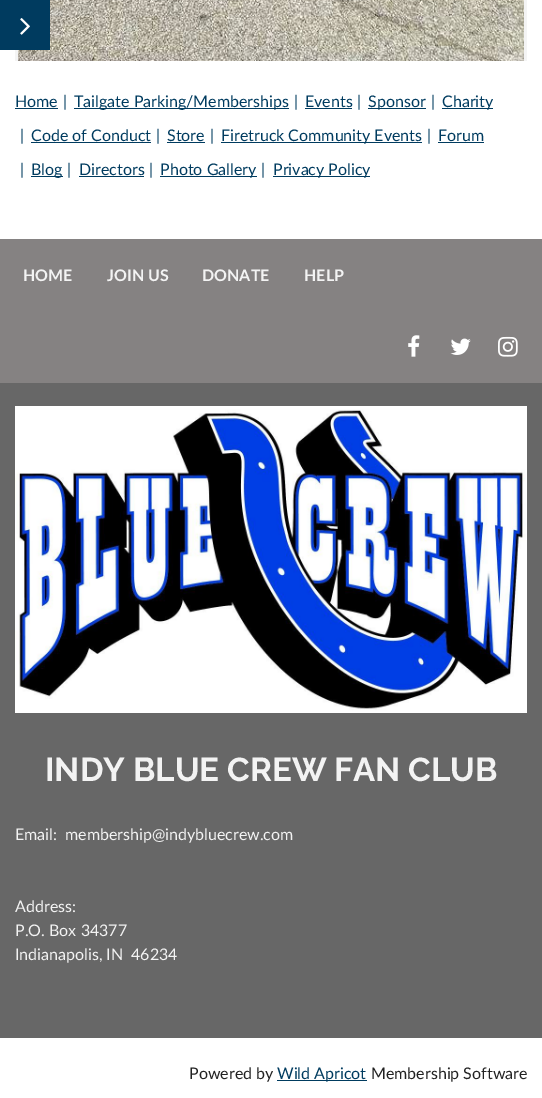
%!PS-Adobe-3.0
%%BoundingBox: 0 0 542 1098
%%LanguageLevel: 3
%%Pages: 1
%%EndComments
%%BeginProlog
/drawimage { 5 dict begin { /h /w /y /x /name } { exch def } forall
  gsave x y translate w h scale
  w h 8 [w 0 0 h 0 0] name (r) file false 3 colorimage grestore end } def
%%EndProlog
%%BeginSetup
<< /PageSize [542 1098] >> setpagedevice
%%EndSetup
%%Page: 1 1
0 1098 translate 1 -1 scale
4 setmiterlimit
1 setgray
0 0 542 1098 rectfill
0.957 setgray
15 0 512 61 rectfill
(images/2.raw) 18 0 506 61 drawimage
0 0.231 0.373 setrgbcolor
0 0 50 50 rectfill
(images/1.raw) 20 18 10 17 drawimage
15 108 43 1 rectfill
74 108 215 1 rectfill
305 108 47 1 rectfill
368 108 58 1 rectfill
442 108 51 1 rectfill
31 142 120 1 rectfill
167 142 38 1 rectfill
221 142 201 1 rectfill
438 142 46 1 rectfill
31 176 32 1 rectfill
79 176 65 1 rectfill
160 176 97 1 rectfill
273 176 97 1 rectfill
0.522 0.51 0.51 setrgbcolor
0 239 542 144 rectfill
(images/3.raw) 408 335 12 22 drawimage
(images/4.raw) 450 338 21 17 drawimage
(images/5.raw) 498 336 20 21 drawimage
0.404 setgray
0 383 542 655 rectfill
(images/6.raw) 15 406 512 307 drawimage
0 0.231 0.373 setrgbcolor
277 1080 90 1 rectfill
/Lato-Regular [16 0 0 -16 0 0] selectfont
15 107 moveto (Home) show
63 107 moveto (|) show
74 107 moveto (Tailgate Parking/Memberships) show
294 107 moveto (|) show
305 107 moveto (Events) show
357 107 moveto (|) show
368 107 moveto (Sponsor) show
431 107 moveto (|) show
442 107 moveto (Charity) show
20 141 moveto (|) show
31 141 moveto (Code of Conduct) show
156 141 moveto (|) show
167 141 moveto (Store) show
210 141 moveto (|) show
221 141 moveto (Firetruck Community Events) show
427 141 moveto (|) show
438 141 moveto (Forum) show
20 175 moveto (|) show
31 175 moveto (Blog) show
67 175 moveto (|) show
79 175 moveto (Directors) show
149 175 moveto (|) show
160 175 moveto (Photo Gallery) show
261 175 moveto (|) show
273 175 moveto (Privacy Policy) show
/Lato-Bold [16 0 0 -16 0 0] selectfont
0.953 setgray
23 281 moveto (HOME) show
107 281 moveto (JOIN US) show
202 281 moveto (DONATE) show
304 281 moveto (HELP) show
/Raleway-Bold [33 0 0 -33 0 0] selectfont
45 781 moveto (INDY BLUE CREW FAN CLUB) show
/Lato-Regular [16 0 0 -16 0 0] selectfont
15 840 moveto (Email:  membership@indybluecrew.com) show
15 912 moveto (Address:) show
15 936 moveto (P.O. Box 34377) show
15 960 moveto (Indianapolis, IN  46234) show
0.133 setgray
189 1079 moveto (Powered by) show
0 0.231 0.373 setrgbcolor
277 1079 moveto (Wild Apricot) show
0.133 setgray
371 1079 moveto (Membership Software) show
showpage
%%EOF
